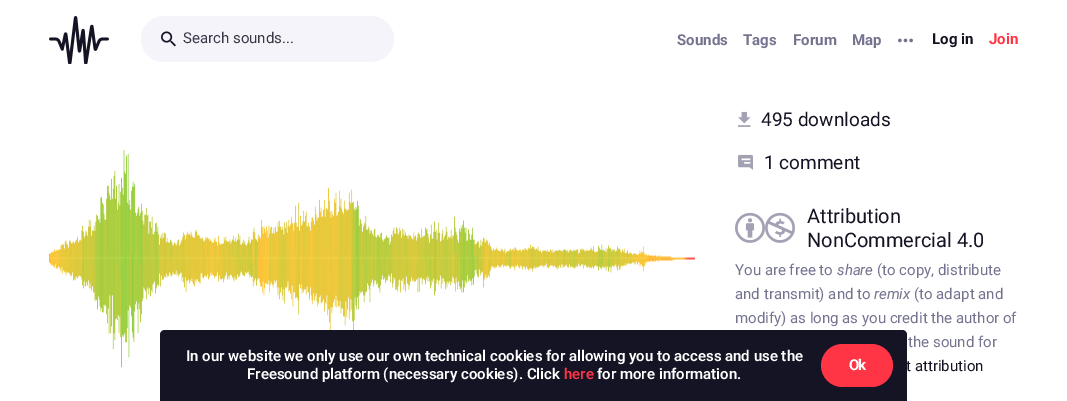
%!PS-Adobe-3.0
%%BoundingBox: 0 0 1067 401
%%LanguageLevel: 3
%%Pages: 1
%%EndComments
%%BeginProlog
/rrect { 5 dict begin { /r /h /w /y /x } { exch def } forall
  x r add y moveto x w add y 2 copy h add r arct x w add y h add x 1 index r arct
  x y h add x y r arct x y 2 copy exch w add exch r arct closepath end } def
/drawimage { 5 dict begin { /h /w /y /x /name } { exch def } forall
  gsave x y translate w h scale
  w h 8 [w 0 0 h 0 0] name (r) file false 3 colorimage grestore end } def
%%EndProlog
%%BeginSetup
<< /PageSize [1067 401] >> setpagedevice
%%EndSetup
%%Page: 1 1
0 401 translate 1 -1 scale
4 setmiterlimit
1 setgray
0 0 1067 401 rectfill
(images/1.raw) 49 16 60 48 drawimage
0.957 0.957 0.98 setrgbcolor
141 16 253 46 23 rrect fill
(images/2.raw) 161 31 15 16 drawimage
(images/3.raw) 898 38 15 5 drawimage
(images/4.raw) 49 149 646 219 drawimage
(images/5.raw) 738 111 13 16 drawimage
(images/6.raw) 738 154 15 16 drawimage
(images/7.raw) 735 212 60 31 drawimage
0.078 0.078 0.141 setrgbcolor
newpath 165 330 moveto 902 330 lineto 905 330 907 332 907 335 curveto 907 401 lineto 160 401 lineto 160 335 lineto 160 332 162 330 165 330 curveto closepath fill
1 0.208 0.275 setrgbcolor
821 344 72 43 21.5 rrect fill
/Roboto-Regular [15 0 0 -15 0 0] selectfont
0.224 0.224 0.278 setrgbcolor
183 43 moveto (Search sounds...) show
/Roboto-Bold [15 0 0 -15 0 0] selectfont
0.455 0.455 0.565 setrgbcolor
677 45 moveto (Sounds) show
743 45 moveto (Tags) show
793 45 moveto (Forum) show
852 45 moveto (Map) show
0.078 0.078 0.141 setrgbcolor
932 44 moveto (Log in) show
1 0.208 0.275 setrgbcolor
989 44 moveto (Join) show
/Roboto-Regular [19 0 0 -19 0 0] selectfont
0.078 0.078 0.141 setrgbcolor
761 126 moveto (495 downloads) show
764 169 moveto (1 comment) show
/Roboto-Regular [20 0 0 -20 0 0] selectfont
807 223 moveto (Attribution) show
807 247 moveto (NonCommercial 4.0) show
/Roboto-Regular [15 0 0 -15 0 0] selectfont
0.455 0.455 0.565 setrgbcolor
735 275 moveto (You are free to) show
/Roboto-Italic [15 0 0 -15 0 0] selectfont
837 275 moveto (share) show
/Roboto-Regular [15 0 0 -15 0 0] selectfont
877 275 moveto (\(to copy, distribute) show
735 299 moveto (and transmit\) and to) show
/Roboto-Italic [15 0 0 -15 0 0] selectfont
874 299 moveto (remix) show
/Roboto-Regular [15 0 0 -15 0 0] selectfont
914 299 moveto (\(to adapt and) show
735 323 moveto (modify\) as long as you credit the author of) show
908 347 moveto (the sound for) show
0.078 0.078 0.141 setrgbcolor
906 371 moveto (t attribution) show
/Roboto-SemiBold [15 0 0 -15 0 0] selectfont
1 setgray
186 361 moveto (In our website we only use our own technical cookies for allowing you to access and use the) show
247 379 moveto (Freesound platform \(necessary cookies\). Click) show
1 0.208 0.275 setrgbcolor
564 379 moveto (here) show
1 setgray
597 379 moveto (for more information.) show
/Roboto-Bold [15 0 0 -15 0 0] selectfont
849 370 moveto -1 0 (Ok) ashow
showpage
%%EOF
